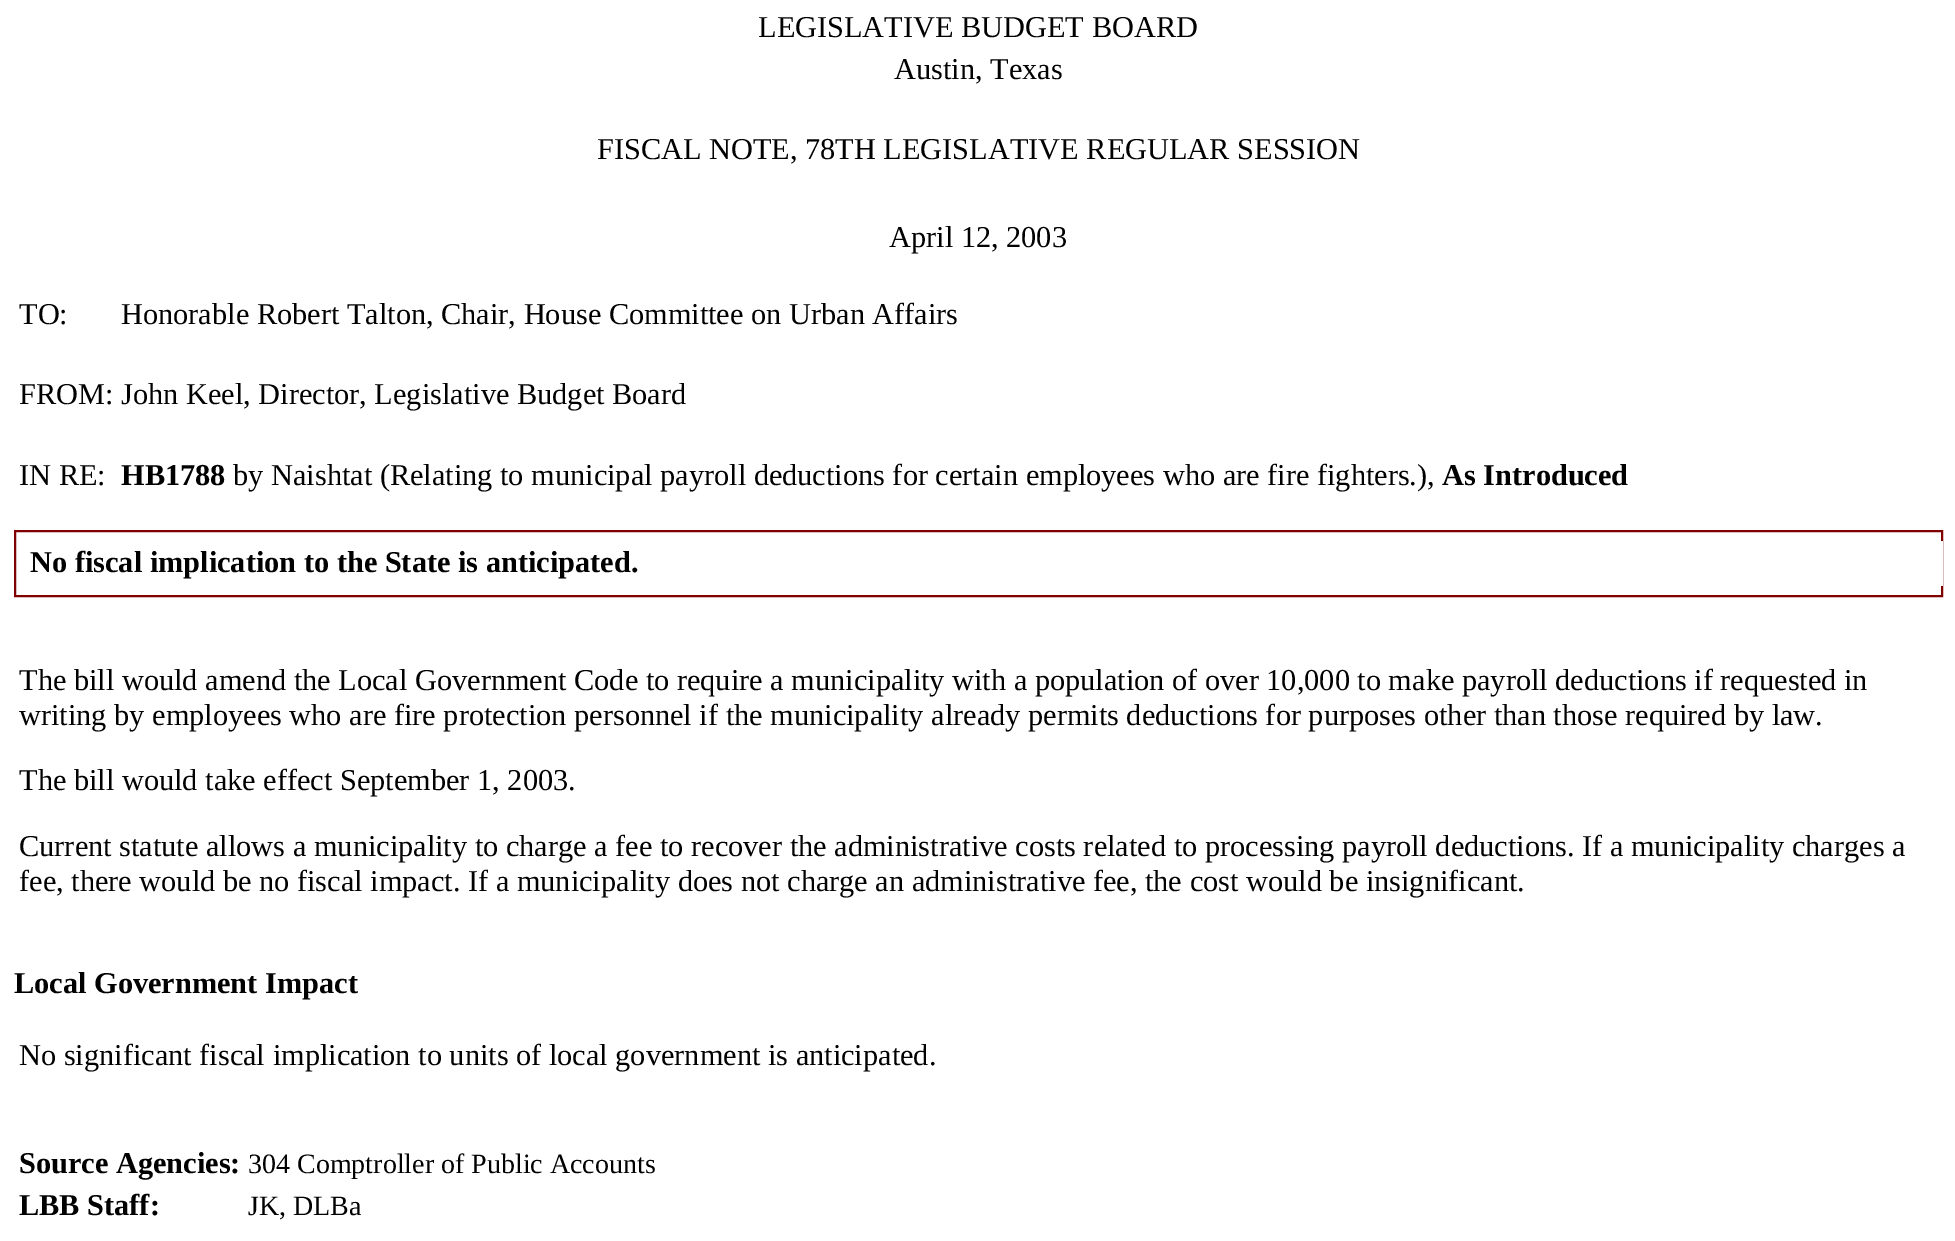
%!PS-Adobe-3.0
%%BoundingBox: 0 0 1955 1241
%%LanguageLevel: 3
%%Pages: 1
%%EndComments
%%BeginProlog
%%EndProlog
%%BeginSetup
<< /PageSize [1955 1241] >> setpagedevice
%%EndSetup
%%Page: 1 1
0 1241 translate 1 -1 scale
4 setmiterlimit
1 setgray
0 0 1955 1241 rectfill
0.502 0 0 setrgbcolor
2 setlinewidth
15 531 1927 65 rectstroke
1 setgray
1941 541 2 45 rectfill
/LiberationSerif-Regular [30.33 0 0 -30.33 0 0] selectfont
0 setgray
758 37 moveto (LEGISLATIVE BUDGET BOARD) show
894 79 moveto (Austin, Texas) show
597 159 moveto (FISCAL NOTE, 78TH LEGISLATIVE REGULAR SESSION) show
889 247 moveto (April 12, 2003) show
19 324 moveto (TO:) show
121 324 moveto (Honorable Robert Talton, Chair, House Committee on Urban Affairs) show
19 404 moveto (FROM:) show
121 404 moveto (John Keel, Director, Legislative Budget Board) show
19 485 moveto (IN RE:) show
/LiberationSerif-Bold [30.33 0 0 -30.33 0 0] selectfont
121 485 moveto (HB1788) show
/LiberationSerif-Regular [30.33 0 0 -30.33 0 0] selectfont
233 485 moveto (by Naishtat \(Relating to municipal payroll deductions for certain employees who are fire fighters.\),) show
/LiberationSerif-Bold [30.33 0 0 -30.33 0 0] selectfont
1442 485 moveto (As Introduced) show
30 572 moveto (No fiscal implication to the State is anticipated.) show
/LiberationSerif-Regular [30.33 0 0 -30.33 0 0] selectfont
19 690 moveto (The bill would amend the Local Government Code to require a municipality with a population of over 10,000 to make payroll deductions if requested in) show
19 725 moveto (writing by employees who are fire protection personnel if the municipality already permits deductions for purposes other than those required by law.) show
19 790 moveto (The bill would take effect September 1, 2003.) show
19 856 moveto (Current statute allows a municipality to charge a fee to recover the administrative costs related to processing payroll deductions. If a municipality charges a) show
19 891 moveto (fee, there would be no fiscal impact. If a municipality does not charge an administrative fee, the cost would be insignificant.) show
/LiberationSerif-Bold [30.33 0 0 -30.33 0 0] selectfont
14 993 moveto (Local Government Impact) show
/LiberationSerif-Regular [30.33 0 0 -30.33 0 0] selectfont
19 1065 moveto (No significant fiscal implication to units of local government is anticipated.) show
/LiberationSerif-Bold [30.33 0 0 -30.33 0 0] selectfont
19 1173 moveto (Source Agencies:) show
/LiberationSerif-Regular [28 0 0 -28 0 0] selectfont
248 1173 moveto (304 Comptroller of Public Accounts) show
/LiberationSerif-Bold [30.33 0 0 -30.33 0 0] selectfont
19 1215 moveto (LBB Staff:) show
/LiberationSerif-Regular [28 0 0 -28 0 0] selectfont
248 1215 moveto (JK, DLBa) show
showpage
%%EOF
